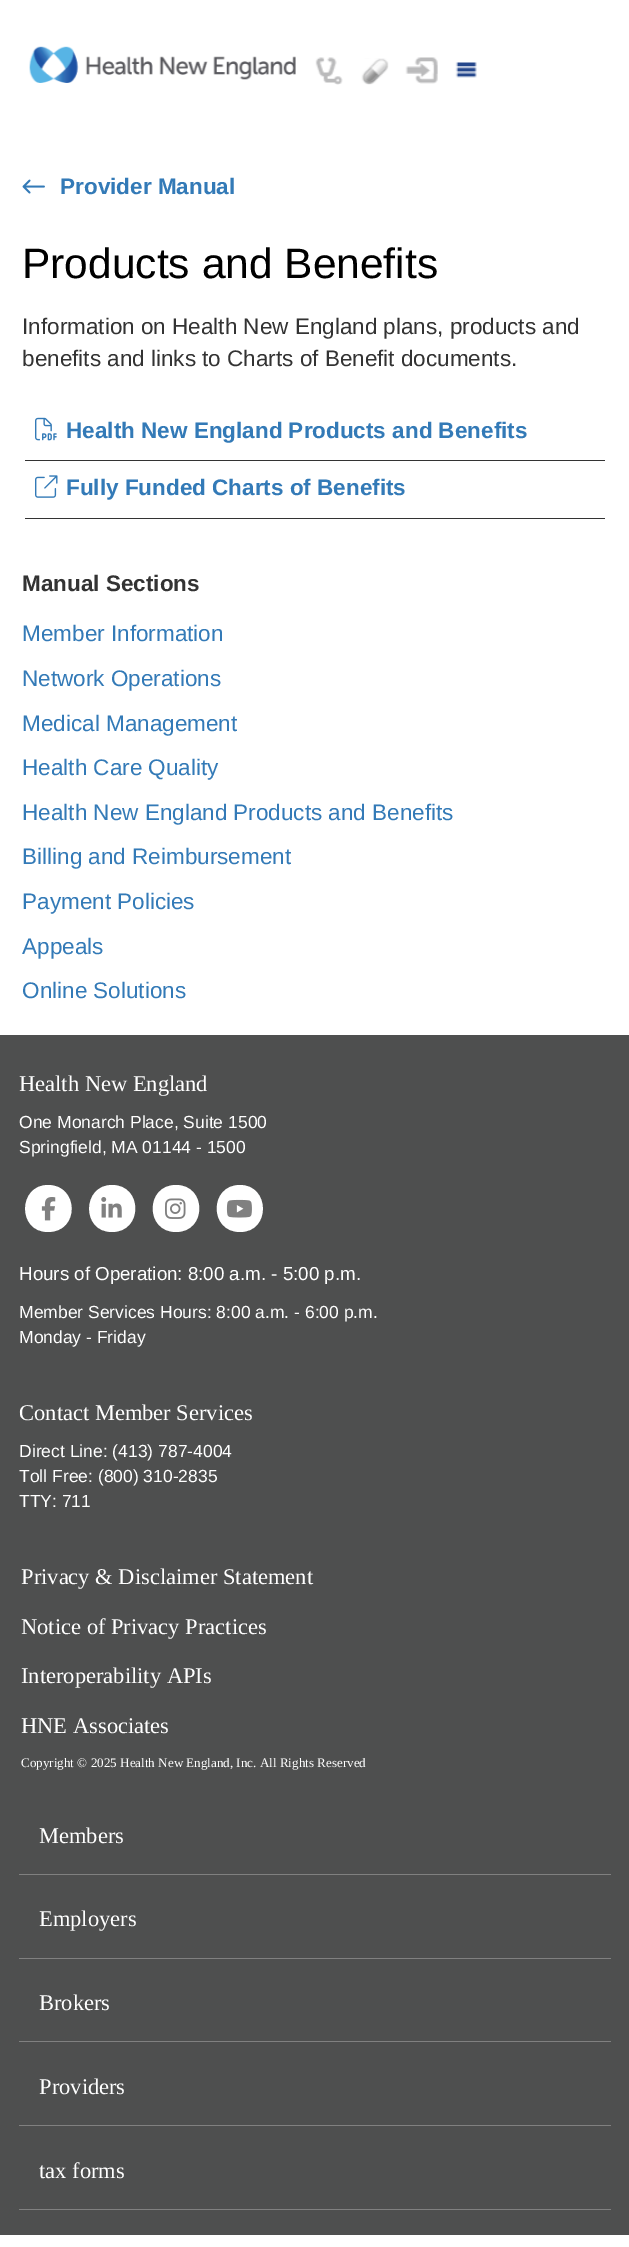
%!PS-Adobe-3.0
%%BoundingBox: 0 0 629 2247
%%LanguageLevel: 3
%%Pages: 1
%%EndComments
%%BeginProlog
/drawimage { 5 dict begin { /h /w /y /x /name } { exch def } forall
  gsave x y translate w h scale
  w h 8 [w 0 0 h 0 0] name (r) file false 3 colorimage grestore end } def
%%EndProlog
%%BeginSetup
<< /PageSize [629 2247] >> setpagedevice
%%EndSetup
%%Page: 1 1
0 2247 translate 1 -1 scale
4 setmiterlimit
1 setgray
0 0 629 2247 rectfill
(images/1.raw) 29 46 267 37 drawimage
(images/2.raw) 315 57 28 28 drawimage
(images/3.raw) 361 58 28 27 drawimage
(images/4.raw) 405 57 33 27 drawimage
(images/5.raw) 455 62 22 16 drawimage
(images/6.raw) 22 179 23 15 drawimage
0.2 setgray
25 460 580 1 rectfill
(images/7.raw) 35 417 22 24 drawimage
25 518 580 1 rectfill
(images/8.raw) 35 475 23 23 drawimage
0.306 0.31 0.31 setrgbcolor
0 1035 629 1200 rectfill
1 setgray
newpath 48 1232 moveto 80 1232 79 1185 48 1185 curveto 18 1185 17 1232 48 1232 curveto closepath fill
(images/9.raw) 41 1197 15 24 drawimage
newpath 112 1232 moveto 143 1232 143 1185 112 1185 curveto 82 1185 81 1232 112 1232 curveto closepath fill
(images/10.raw) 101 1197 21 21 drawimage
newpath 176 1232 moveto 207 1232 207 1185 176 1185 curveto 145 1185 145 1232 176 1232 curveto closepath fill
(images/11.raw) 165 1198 21 21 drawimage
newpath 240 1232 moveto 271 1232 270 1185 240 1185 curveto 209 1185 209 1232 240 1232 curveto closepath fill
(images/12.raw) 226 1199 26 19 drawimage
0.502 setgray
19 1874 592 1 rectfill
19 1958 592 1 rectfill
19 2041 592 1 rectfill
19 2125 592 1 rectfill
19 2209 592 1 rectfill
/LiberationSans-Bold [22.5 0 0 -22.5 0 0] selectfont
0.2 0.478 0.718 setrgbcolor
60 194 moveto (Provider Manual) show
/LiberationSans-Regular [42.5 0 0 -42.5 0 0] selectfont
0 setgray
22 278 moveto (Products and Benefits) show
/LiberationSans-Regular [22.5 0 0 -22.5 0 0] selectfont
0.2 setgray
22 334 moveto (Information on Health New England plans, products and) show
22 366 moveto (benefits and links to Charts of Benefit documents.) show
/LiberationSans-Bold [22.5 0 0 -22.5 0 0] selectfont
0.2 0.478 0.718 setrgbcolor
66 438 moveto (Health New England Products and Benefits) show
66 495 moveto (Fully Funded Charts of Benefits) show
0.2 setgray
22 591 moveto (Manual Sections) show
/LiberationSans-Regular [22.5 0 0 -22.5 0 0] selectfont
0.2 0.478 0.718 setrgbcolor
22 641 moveto (Member Information) show
22 686 moveto (Network Operations) show
22 731 moveto (Medical Management) show
22 775 moveto (Health Care Quality) show
22 820 moveto (Health New England Products and Benefits) show
22 864 moveto (Billing and Reimbursement) show
22 909 moveto (Payment Policies) show
22 954 moveto (Appeals) show
22 998 moveto (Online Solutions) show
/LiberationSerif-Regular [22.5 0 0 -22.5 0 0] selectfont
1 setgray
19 1091 moveto (Health New England) show
/LiberationSans-Regular [17.5 0 0 -17.5 0 0] selectfont
19 1128 moveto (One Monarch Place, Suite 1500) show
19 1153 moveto (Springfield, MA 01144 - 1500) show
/LiberationSans-Regular [18.75 0 0 -18.75 0 0] selectfont
19 1280 moveto (Hours of Operation: 8:00 a.m. - 5:00 p.m.) show
/LiberationSans-Regular [17.5 0 0 -17.5 0 0] selectfont
19 1318 moveto (Member Services Hours: 8:00 a.m. - 6:00 p.m.) show
19 1343 moveto (Monday - Friday) show
/LiberationSerif-Regular [22.5 0 0 -22.5 0 0] selectfont
19 1420 moveto (Contact Member Services) show
/LiberationSans-Regular [17.5 0 0 -17.5 0 0] selectfont
19 1457 moveto (Direct Line: \(413\) 787-4004) show
19 1482 moveto (Toll Free: \(800\) 310-2835) show
19 1507 moveto (TTY: 711) show
/LiberationSerif-Regular [22.5 0 0 -22.5 0 0] selectfont
21 1584 moveto (Privacy & Disclaimer Statement) show
21 1634 moveto (Notice of Privacy Practices) show
21 1683 moveto (Interoperability APIs) show
21 1733 moveto (HNE Associates) show
/LiberationSerif-Regular [13.1 0 0 -13.1 0 0] selectfont
21 1767 moveto (Copyright © 2025 Health New England, Inc. All Rights Reserved) show
/LiberationSerif-Regular [22.5 0 0 -22.5 0 0] selectfont
39 1843 moveto (Members) show
39 1926 moveto (Employers) show
39 2010 moveto (Brokers) show
39 2094 moveto (Providers) show
39 2178 moveto (tax forms) show
showpage
%%EOF
